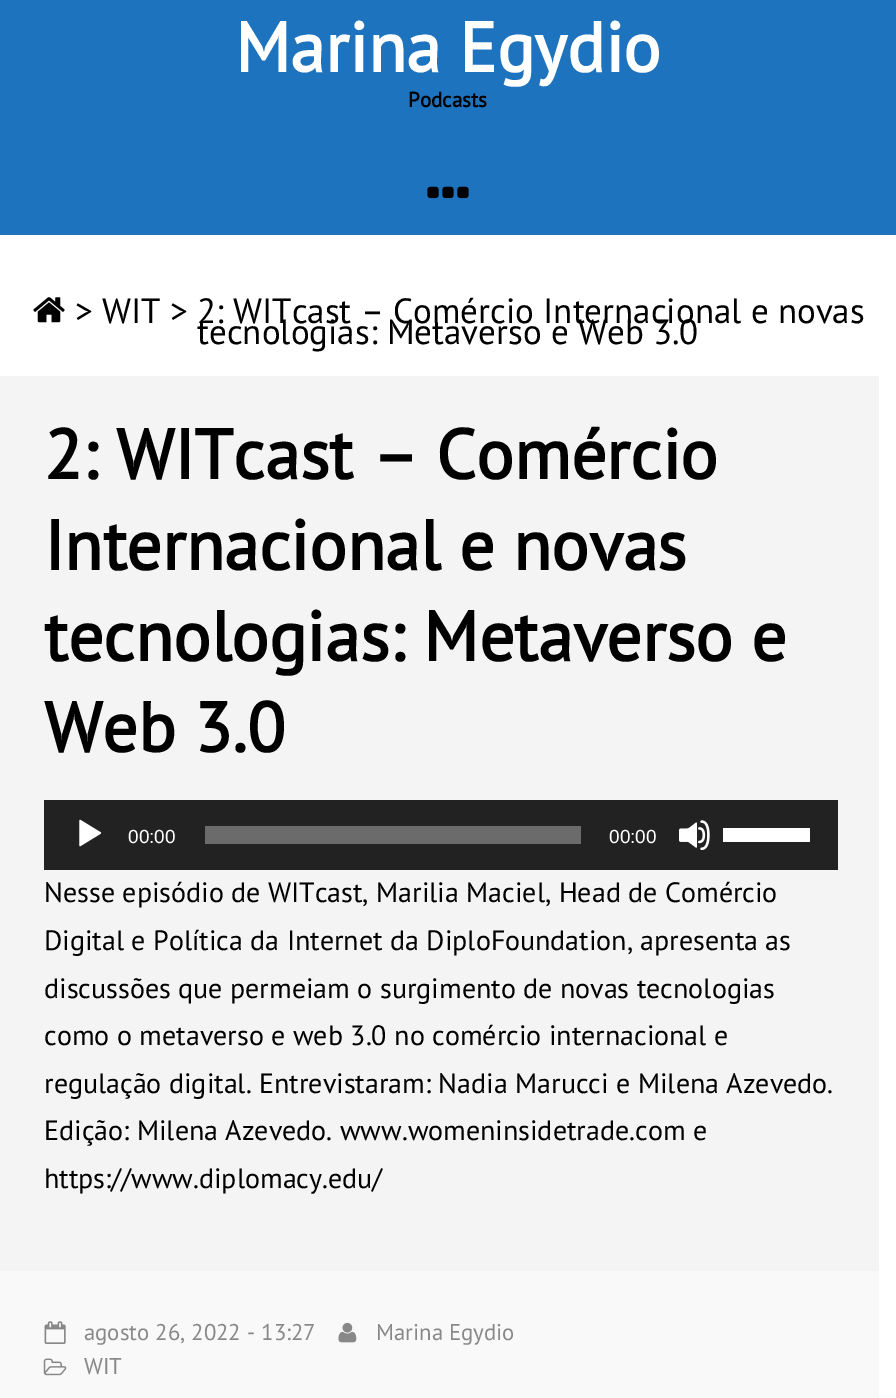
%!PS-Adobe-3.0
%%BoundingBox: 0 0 896 1398
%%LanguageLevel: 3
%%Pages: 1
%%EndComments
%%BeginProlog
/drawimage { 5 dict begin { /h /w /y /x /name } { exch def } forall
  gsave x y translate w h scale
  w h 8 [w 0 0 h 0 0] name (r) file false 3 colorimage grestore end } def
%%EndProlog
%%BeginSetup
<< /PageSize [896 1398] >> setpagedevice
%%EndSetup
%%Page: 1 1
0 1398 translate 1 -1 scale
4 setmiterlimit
1 setgray
0 0 896 1398 rectfill
0.118 0.451 0.745 setrgbcolor
0 0 896 235 rectfill
(images/1.raw) 427 186 42 13 drawimage
(images/2.raw) 33 297 32 26 drawimage
0.957 setgray
0 376 879 895 rectfill
0.133 setgray
44 800 794 70 rectfill
(images/3.raw) 79 819 23 28 drawimage
0.42 setgray
205 826 376 18 rectfill
(images/4.raw) 679 820 31 30 drawimage
1 setgray
723 828 87 14 rectfill
0.976 setgray
0 1271 879 127 rectfill
(images/5.raw) 44 1321 22 23 drawimage
(images/6.raw) 338 1322 19 21 drawimage
(images/7.raw) 43 1358 24 18 drawimage
/PTSans-Bold [70 0 0 -70 0 0] selectfont
1 setgray
235 72 moveto (Marina Egydio) show
/PTSans-Bold [21 0 0 -21 0 0] selectfont
0 setgray
408 107 moveto (Podcasts) show
/PTSans-Regular [35 0 0 -35 0 0] selectfont
75 323 moveto (> WIT > 2: WITcast – Comércio Internacional e novas) show
197 344 moveto (tecnologias: Metaverso e Web 3.0) show
/PTSans-Bold [70 0 0 -70 0 0] selectfont
44 479 moveto (2: WITcast – Comércio) show
44 570 moveto (Internacional e novas) show
44 661 moveto (tecnologias: Metaverso e) show
44 752 moveto (Web 3.0) show
/LiberationSans-Regular [19 0 0 -19 0 0] selectfont
1 setgray
128 843 moveto (00:00) show
609 843 moveto (00:00) show
/PTSans-Regular [28 0 0 -28 0 0] selectfont
0 setgray
44 902 moveto (Nesse episódio de WITcast, Marilia Maciel, Head de Comércio) show
44 950 moveto (Digital e Política da Internet da DiploFoundation, apresenta as) show
44 998 moveto (discussões que permeiam o surgimento de novas tecnologias) show
44 1045 moveto (como o metaverso e web 3.0 no comércio internacional e) show
44 1093 moveto (regulação digital. Entrevistaram: Nadia Marucci e Milena Azevedo.) show
44 1140 moveto (Edição: Milena Azevedo. www.womeninsidetrade.com e) show
44 1188 moveto (https://www.diplomacy.edu/) show
/PTSans-Regular [22.75 0 0 -22.75 0 0] selectfont
0.533 setgray
84 1340 moveto (agosto 26, 2022 - 13:27) show
376 1340 moveto (Marina Egydio) show
84 1374 moveto (WIT) show
showpage
%%EOF
